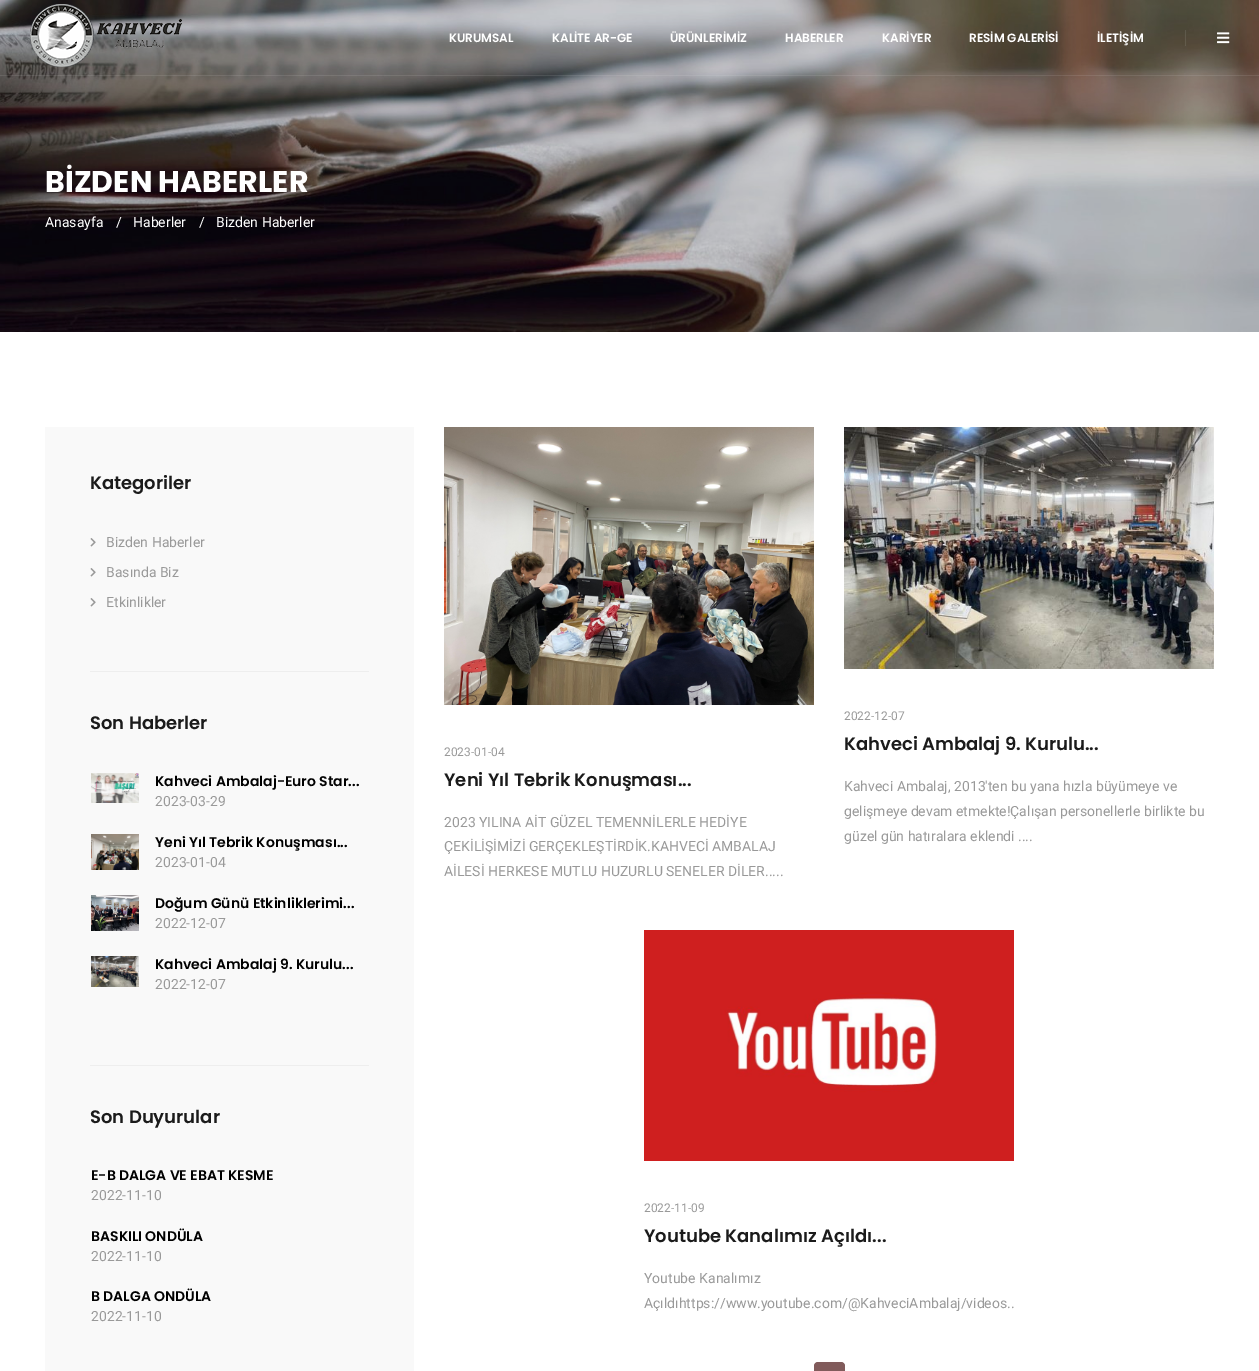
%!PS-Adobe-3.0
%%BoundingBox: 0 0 1259 1371
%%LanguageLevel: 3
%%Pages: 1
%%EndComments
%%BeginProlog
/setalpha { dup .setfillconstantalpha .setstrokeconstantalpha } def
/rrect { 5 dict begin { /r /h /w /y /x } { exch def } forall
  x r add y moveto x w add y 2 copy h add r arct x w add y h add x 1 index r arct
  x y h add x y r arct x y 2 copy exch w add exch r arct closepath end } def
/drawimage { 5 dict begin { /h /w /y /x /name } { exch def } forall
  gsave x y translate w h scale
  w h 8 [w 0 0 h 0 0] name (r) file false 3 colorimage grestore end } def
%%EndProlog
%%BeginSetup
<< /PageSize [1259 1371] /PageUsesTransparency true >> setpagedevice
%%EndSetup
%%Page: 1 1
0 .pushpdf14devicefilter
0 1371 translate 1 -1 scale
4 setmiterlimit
1 setgray
0 0 1259 1371 rectfill
(images/3.raw) 0 0 1259 332 drawimage
0.1 setalpha
0.933 setgray
0 75 1259 1 rectfill
1 setalpha
(images/1.raw) 30 4 152 63 drawimage
0.1 setalpha
1185 30 1 16 rectfill
1 setalpha
(images/2.raw) 1217 32 13 12 drawimage
0.976 setgray
45 427 369 944 rectfill
0.933 setgray
90 671 279 1 rectfill
(images/4.raw) 90 538 6 9 drawimage
(images/4.raw) 90 568 6 9 drawimage
(images/4.raw) 90 598 6 9 drawimage
90 1065 279 1 rectfill
(images/5.raw) 91 773 48 30 drawimage
(images/6.raw) 91 834 48 36 drawimage
(images/7.raw) 91 895 48 36 drawimage
(images/8.raw) 91 956 48 31 drawimage
(images/9.raw) 444 427 370 278 drawimage
(images/10.raw) 844 427 370 242 drawimage
(images/11.raw) 644 930 370 231 drawimage
0.506 0.357 0.357 setrgbcolor
814 1362 31 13 4 rrect fill
/Poppins-SemiBold [12 0 0 -12 0 0] selectfont
1 setgray
449 42 moveto (KURUMSAL) show
552 42 moveto (KALİTE AR-GE) show
670 42 moveto (ÜRÜNLERİMİZ) show
785 42 moveto (HABERLER) show
882 42 moveto (KARİYER) show
969 42 moveto (RESİM GALERİSİ) show
1097 42 moveto (İLETİŞİM) show
/Poppins-Bold [30 0 0 -30 0 0] selectfont
45 192 moveto (BİZDEN HABERLER) show
/Roboto-Regular [14 0 0 -14 0 0] selectfont
45 227 moveto (Anasayfa) show
116 227 moveto (/) show
133 227 moveto (Haberler) show
199 227 moveto (/) show
216 227 moveto (Bizden Haberler) show
/Poppins-SemiBold [18 0 0 -18 0 0] selectfont
0.106 setgray
90 489 moveto (Kategoriler) show
/Roboto-Regular [14 0 0 -14 0 0] selectfont
0.6 setgray
106 547 moveto (Bizden Haberler) show
106 577 moveto (Basında Biz) show
106 607 moveto (Etkinlikler) show
/Poppins-SemiBold [18 0 0 -18 0 0] selectfont
0.106 setgray
90 729 moveto (Son Haberler) show
/Poppins-SemiBold [14 0 0 -14 0 0] selectfont
0 setgray
155 786 moveto (Kahveci Ambalaj-Euro Star...) show
/Roboto-Regular [14 0 0 -14 0 0] selectfont
0.6 setgray
155 806 moveto (2023-03-29) show
/Poppins-SemiBold [14 0 0 -14 0 0] selectfont
0 setgray
155 847 moveto (Yeni Yıl Tebrik Konuşması...) show
/Roboto-Regular [14 0 0 -14 0 0] selectfont
0.6 setgray
155 867 moveto (2023-01-04) show
/Poppins-SemiBold [14 0 0 -14 0 0] selectfont
0 setgray
155 908 moveto (Doğum Günü Etkinliklerimi...) show
/Roboto-Regular [14 0 0 -14 0 0] selectfont
0.6 setgray
155 928 moveto (2022-12-07) show
/Poppins-SemiBold [14 0 0 -14 0 0] selectfont
0 setgray
155 969 moveto (Kahveci Ambalaj 9. Kurulu...) show
/Roboto-Regular [14 0 0 -14 0 0] selectfont
0.6 setgray
155 989 moveto (2022-12-07) show
/Poppins-SemiBold [18 0 0 -18 0 0] selectfont
0.106 setgray
90 1123 moveto (Son Duyurular) show
/Poppins-SemiBold [14 0 0 -14 0 0] selectfont
0 setgray
91 1180 moveto (E-B DALGA VE EBAT KESME) show
/Roboto-Regular [14 0 0 -14 0 0] selectfont
0.6 setgray
91 1200 moveto (2022-11-10) show
/Poppins-SemiBold [14 0 0 -14 0 0] selectfont
0 setgray
91 1241 moveto (BASKILI ONDÜLA) show
/Roboto-Regular [14 0 0 -14 0 0] selectfont
0.6 setgray
91 1261 moveto (2022-11-10) show
/Poppins-SemiBold [14 0 0 -14 0 0] selectfont
0 setgray
91 1301 moveto (B DALGA ONDÜLA) show
/Roboto-Regular [14 0 0 -14 0 0] selectfont
0.6 setgray
91 1321 moveto (2022-11-10) show
/Roboto-Regular [12 0 0 -12 0 0] selectfont
444 756 moveto (2023-01-04) show
/Poppins-SemiBold [18 0 0 -18 0 0] selectfont
0.106 setgray
444 786 moveto (Yeni Yıl Tebrik Konuşması...) show
/Roboto-Regular [14 0 0 -14 0 0] selectfont
0.6 setgray
444 827 moveto (2023 YILINA AİT GÜZEL TEMENNİLERLE HEDİYE) show
444 851 moveto (ÇEKİLİŞİMİZİ GERÇEKLEŞTİRDİK.KAHVECİ AMBALAJ) show
444 876 moveto (AİLESİ HERKESE MUTLU HUZURLU SENELER DİLER.....) show
/Roboto-Regular [12 0 0 -12 0 0] selectfont
844 720 moveto (2022-12-07) show
/Poppins-SemiBold [18 0 0 -18 0 0] selectfont
0.106 setgray
844 750 moveto (Kahveci Ambalaj 9. Kurulu...) show
/Roboto-Regular [14 0 0 -14 0 0] selectfont
0.6 setgray
844 791 moveto (Kahveci Ambalaj, 2013'ten bu yana hızla büyümeye ve) show
844 816 moveto (gelişmeye devam etmekte!Çalışan personellerle birlikte bu) show
844 841 moveto (güzel gün hatıralara eklendi ....) show
/Roboto-Regular [12 0 0 -12 0 0] selectfont
644 1212 moveto (2022-11-09) show
/Poppins-SemiBold [18 0 0 -18 0 0] selectfont
0.106 setgray
644 1242 moveto (Youtube Kanalımız Açıldı...) show
/Roboto-Regular [14 0 0 -14 0 0] selectfont
0.6 setgray
644 1283 moveto (Youtube Kanalımız) show
644 1308 moveto (Açıldıhttps://www.youtube.com/@KahveciAmbalaj/videos..) show
.poppdf14devicefilter showpage
%%EOF
